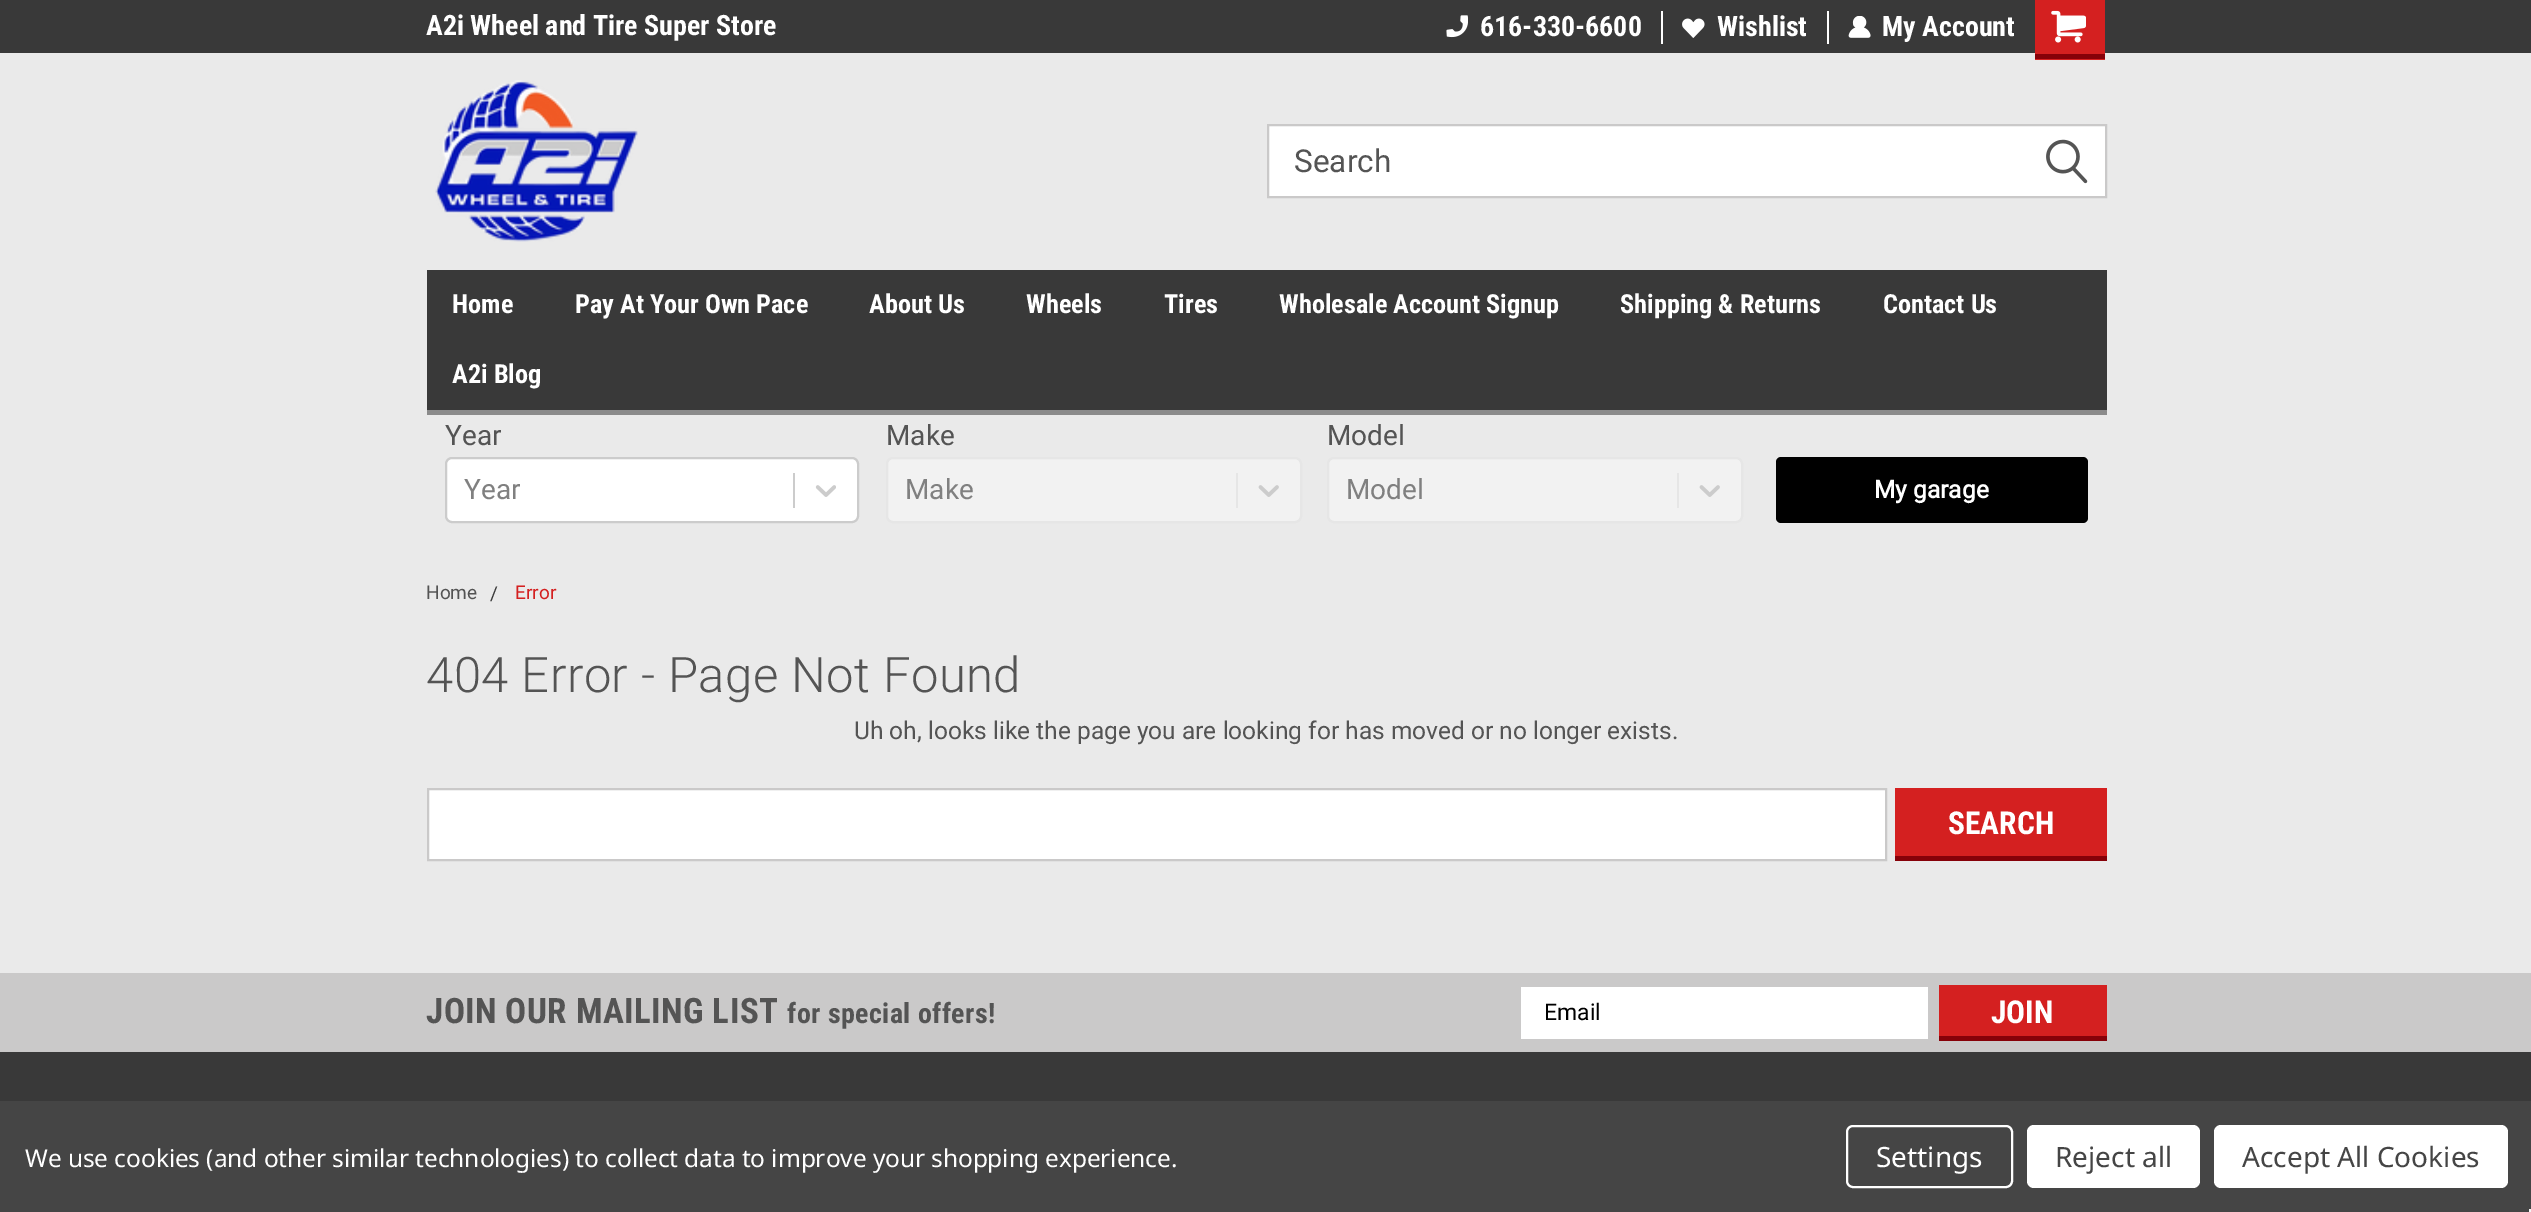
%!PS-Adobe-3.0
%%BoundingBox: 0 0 2531 1212
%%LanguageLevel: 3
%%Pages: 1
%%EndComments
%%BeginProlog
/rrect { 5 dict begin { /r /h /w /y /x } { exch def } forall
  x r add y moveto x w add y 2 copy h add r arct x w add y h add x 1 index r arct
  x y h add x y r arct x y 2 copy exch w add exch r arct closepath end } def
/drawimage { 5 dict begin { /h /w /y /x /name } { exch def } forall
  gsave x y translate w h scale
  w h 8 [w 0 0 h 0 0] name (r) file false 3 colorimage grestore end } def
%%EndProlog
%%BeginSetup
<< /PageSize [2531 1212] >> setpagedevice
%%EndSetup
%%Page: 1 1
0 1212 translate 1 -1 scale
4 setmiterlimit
0.918 setgray
0 0 2531 1212 rectfill
0.224 setgray
0 0 2531 53 rectfill
1 setgray
1661 11 2 33 rectfill
(images/1.raw) 1446 15 22 23 drawimage
1827 11 2 33 rectfill
(images/2.raw) 1682 18 23 20 drawimage
(images/3.raw) 1848 16 23 22 drawimage
0.831 0.125 0.125 setrgbcolor
2035 0 70 60 rectfill
0.525 0.004 0.035 setrgbcolor
2035 54 70 5 rectfill
(images/4.raw) 2051 10 35 33 drawimage
(images/5.raw) 435 80 203 162 drawimage
1 setgray
newpath 1268 125 moveto 2106 125 lineto 2106 197 lineto 1268 197 lineto closepath gsave fill grestore
0.792 0.788 0.788 setrgbcolor
2 setlinewidth
stroke
(images/6.raw) 2046 139 42 45 drawimage
0.224 setgray
427 270 1680 140 rectfill
0.545 setgray
427 410 1680 5 rectfill
1 setgray
446 458 412 64 6 rrect gsave fill grestore
0.8 setgray
stroke
793 473 2 35 rectfill
(images/7.raw) 815 485 21 12 drawimage
0.949 setgray
887 458 414 64 6 rrect gsave fill grestore
0.902 setgray
stroke
1236 473 2 35 rectfill
(images/8.raw) 1258 485 21 12 drawimage
0.949 setgray
1328 458 414 64 6 rrect gsave fill grestore
0.902 setgray
stroke
1677 473 2 35 rectfill
(images/8.raw) 1699 485 21 12 drawimage
0 setgray
1776 457 312 66 5 rrect fill
1 setgray
newpath 428 789 moveto 1886 789 lineto 1886 860 lineto 428 860 lineto closepath gsave fill grestore
0.792 0.788 0.788 setrgbcolor
stroke
0.831 0.125 0.125 setrgbcolor
1895 788 212 68 rectfill
0.525 0.004 0.035 setrgbcolor
1895 856 212 5 rectfill
0.224 setgray
0 1052 2531 49 rectfill
0.792 0.788 0.788 setrgbcolor
0 973 2531 79 rectfill
1 setgray
1521 987 407 52 rectfill
0.831 0.125 0.125 setrgbcolor
1939 985 168 51 rectfill
0.525 0.004 0.035 setrgbcolor
1939 1036 168 5 rectfill
0.271 setgray
0 1101 2531 111 rectfill
1 setgray
1847 1126 165 61 6 rrect stroke
2027 1125 173 63 7 rrect fill
2214 1125 294 63 7 rrect fill
0.961 setgray
2529 1209 2 3 rectfill
/RobotoCondensed-Bold [28 0 0 -28 0 0] selectfont
1 setgray
426 35 moveto (A2i Wheel and Tire Super Store) show
1480 36 moveto (616-330-6600) show
1717 36 moveto (Wishlist) show
1882 36 moveto (My Account) show
/Roboto-Regular [31.5 0 0 -31.5 0 0] selectfont
0.329 setgray
1294 172 moveto (Search) show
/RobotoCondensed-Bold [26.25 0 0 -26.25 0 0] selectfont
1 setgray
452 313 moveto (Home) show
575 313 moveto (Pay At Your Own Pace) show
869 313 moveto (About Us) show
1026 313 moveto (Wheels) show
1164 313 moveto (Tires) show
1279 313 moveto (Wholesale Account Signup) show
1620 313 moveto (Shipping & Returns) show
1883 313 moveto (Contact Us) show
452 383 moveto (A2i Blog) show
/Roboto-Regular [28 0 0 -28 0 0] selectfont
0.329 setgray
445 445 moveto (Year) show
0.502 setgray
464 499 moveto (Year) show
0.329 setgray
886 445 moveto (Make) show
0.502 setgray
905 499 moveto (Make) show
0.329 setgray
1327 445 moveto (Model) show
0.502 setgray
1346 499 moveto (Model) show
/Roboto-Bold [24.5 0 0 -24.5 0 0] selectfont
1 setgray
1874 498 moveto (My garage) show
/Roboto-Regular [19 0 0 -19 0 0] selectfont
0.329 setgray
426 599 moveto (Home) show
0.224 setgray
490 600 moveto (/) show
0.831 0.125 0.125 setrgbcolor
515 599 moveto (Error) show
/Roboto-Light [49 0 0 -49 0 0] selectfont
0.329 setgray
426 692 moveto 0.45 0 (404 Error - Page Not Found) ashow
/Roboto-Regular [24.5 0 0 -24.5 0 0] selectfont
854 739 moveto (Uh oh, looks like the page you are looking for has moved or no longer exists.) show
/RobotoCondensed-Bold [31.5 0 0 -31.5 0 0] selectfont
1 setgray
1948 834 moveto (SEARCH) show
/RobotoCondensed-Bold [35 0 0 -35 0 0] selectfont
0.329 setgray
426 1023 moveto 0.45 0 (JOIN OUR MAILING LIST) ashow
/RobotoCondensed-Bold [28 0 0 -28 0 0] selectfont
787 1023 moveto 0.45 0 (for special offers!) ashow
/Roboto-Regular [23 0 0 -23 0 0] selectfont
0 setgray
1544 1020 moveto (Email) show
/RobotoCondensed-Bold [31.5 0 0 -31.5 0 0] selectfont
1 setgray
1991 1023 moveto (JOIN) show
/NotoSans-Regular [24.5 0 0 -24.5 0 0] selectfont
25 1167 moveto -0.09 0 (We use cookies \(and other similar technologies\) to collect data to improve your shopping experience.) ashow
/NotoSans-Regular [28 0 0 -28 0 0] selectfont
1876 1167 moveto (Settings) show
0.271 setgray
2055 1167 moveto (Reject all) show
2242 1167 moveto (Accept All Cookies) show
showpage
%%EOF
